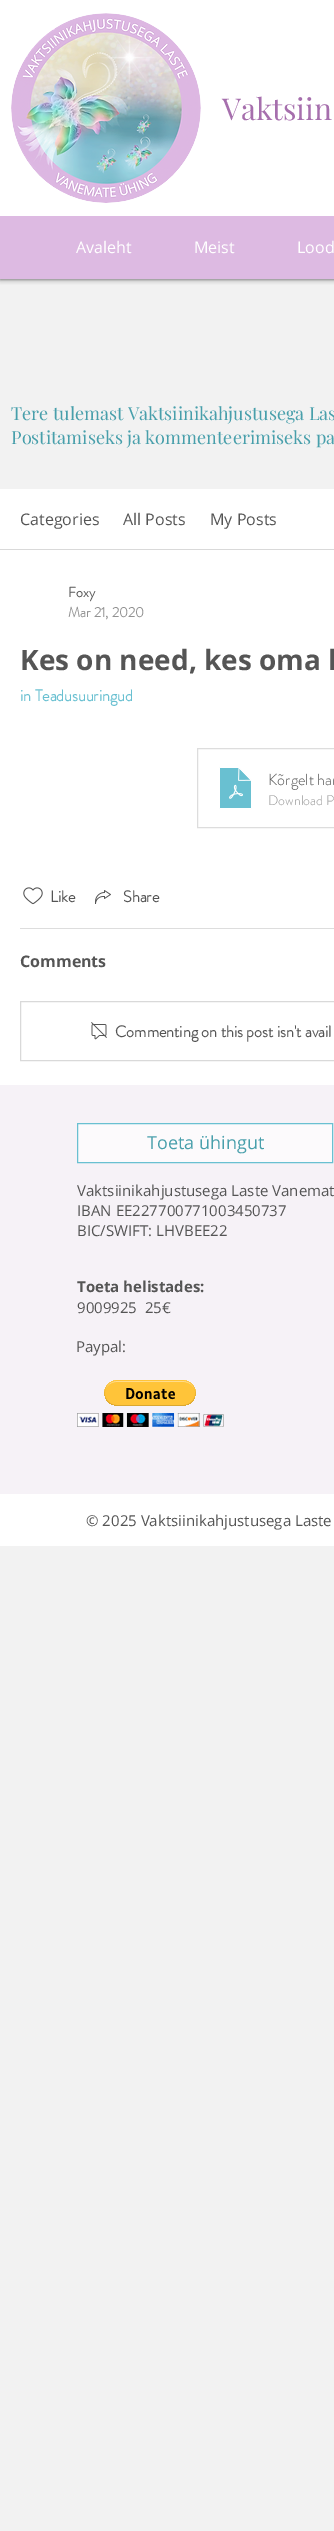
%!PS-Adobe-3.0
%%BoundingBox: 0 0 334 2531
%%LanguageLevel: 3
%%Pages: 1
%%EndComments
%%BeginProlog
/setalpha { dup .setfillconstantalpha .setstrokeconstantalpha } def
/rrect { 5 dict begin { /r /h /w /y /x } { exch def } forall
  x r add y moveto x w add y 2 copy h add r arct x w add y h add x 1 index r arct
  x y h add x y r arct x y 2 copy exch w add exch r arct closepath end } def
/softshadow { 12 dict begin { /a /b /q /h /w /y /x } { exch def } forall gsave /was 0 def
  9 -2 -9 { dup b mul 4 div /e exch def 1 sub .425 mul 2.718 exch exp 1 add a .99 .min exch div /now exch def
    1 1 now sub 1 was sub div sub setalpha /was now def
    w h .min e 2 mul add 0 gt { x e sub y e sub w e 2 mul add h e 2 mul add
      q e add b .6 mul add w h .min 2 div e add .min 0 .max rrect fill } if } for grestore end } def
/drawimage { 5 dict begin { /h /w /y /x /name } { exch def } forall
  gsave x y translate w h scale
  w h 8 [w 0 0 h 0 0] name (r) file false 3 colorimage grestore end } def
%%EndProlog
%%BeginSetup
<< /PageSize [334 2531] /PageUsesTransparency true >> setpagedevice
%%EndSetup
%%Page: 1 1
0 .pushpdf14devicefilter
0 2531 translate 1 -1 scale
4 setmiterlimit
0.949 setgray
0 0 334 2531 rectfill
0 setgray
0 0 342 279 0 2.5 0.7 softshadow
1 setgray
0 0 334 216 rectfill
(images/1.raw) 11 13 190 190 drawimage
0.867 0.729 0.886 setrgbcolor
0 216 334 63 rectfill
1 setgray
0 489 334 596 rectfill
0.851 setgray
0 549 334 1 rectfill
0.867 setgray
197.5 748.5 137 79 rectstroke
(images/2.raw) 219 767 33 42 drawimage
(images/3.raw) 23 887 20 18 drawimage
(images/4.raw) 95 890 16 14 drawimage
20 928 314 1 rectfill
0.851 setgray
20.5 1001.5 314 59 rectstroke
(images/5.raw) 91 1022 16 18 drawimage
0.965 0.949 0.969 setrgbcolor
0 1085 334 409 rectfill
0.988 0.98 0.988 setrgbcolor
newpath 77.5 1123.5 moveto 332.5 1123.5 lineto 332.5 1162.5 lineto 77.5 1162.5 lineto closepath gsave fill grestore
0.412 0.753 0.82 setrgbcolor
stroke
(images/6.raw) 77 1380 147 47 drawimage
1 setgray
0 1494 334 52 rectfill
/PlayfairDisplay-Regular [30 0 0 -30 0 0] selectfont
0.651 0.435 0.678 setrgbcolor
222 120 moveto (Vaktsiin) show
/OpenSans-Regular [16 0 0 -16 0 0] selectfont
1 setgray
76 253 moveto (Avaleht) show
194 253 moveto (Meist) show
297 253 moveto (Lood) show
/PlayfairDisplay-Regular [18 0 0 -18 0 0] selectfont
0.282 0.624 0.671 setrgbcolor
11 420 moveto (Tere tulemast Vaktsiinikahjustusega Las) show
11 444 moveto (Postitamiseks ja kommenteerimiseks pa) show
/OpenSans-Regular [16 0 0 -16 0 0] selectfont
0.333 setgray
20 525 moveto (Categories) show
123 525 moveto (All Posts) show
210 525 moveto (My Posts) show
/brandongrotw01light-Bold [14 0 0 -14 0 0] selectfont
68 597 moveto (Foxy) show
0.573 setgray
68 617 moveto (Mar 21, 2020) show
/OpenSans-Bold [28 0 0 -28 0 0] selectfont
0.333 setgray
20 670 moveto (Kes on need, kes oma l) show
/brandongrotw01light-Bold [16 0 0 -16 0 0] selectfont
0.412 0.753 0.82 setrgbcolor
20 701 moveto (in Teadusuuringud) show
/brandongrotw01light-Light [16 0 0 -16 0 0] selectfont
0.333 setgray
268 785 moveto (Kõrgelt har) show
/brandongrotw01light-Light [14 0 0 -14 0 0] selectfont
0.6 setgray
268 805 moveto (Download P) show
/brandongrotw01light-Bold [16 0 0 -16 0 0] selectfont
0.333 setgray
50 902 moveto (Like) show
123 902 moveto (Share) show
/OpenSans-Bold [16 0 0 -16 0 0] selectfont
20 967 moveto (Comments) show
/brandongrotw01light-Bold [16 0 0 -16 0 0] selectfont
115 1037 moveto (Commenting on this post isn't avail) show
/OpenSans-Regular [18 0 0 -18 0 0] selectfont
0.282 0.624 0.671 setrgbcolor
147 1149 moveto (Toeta ühingut) show
/OpenSans-Regular [15 0 0 -15 0 0] selectfont
0.333 setgray
77 1196 moveto (Vaktsiinikahjustusega Laste Vanemat) show
77 1216 moveto (IBAN EE227700771003450737) show
77 1236 moveto (BIC/SWIFT: LHVBEE22) show
/OpenSans-Bold [15 0 0 -15 0 0] selectfont
77 1292 moveto (Toeta helistades:) show
/OpenSans-Regular [15 0 0 -15 0 0] selectfont
77 1313 moveto (9009925  25€) show
76 1352 moveto (Paypal:) show
86 1526 moveto (© 2025 Vaktsiinikahjustusega Laste) show
.poppdf14devicefilter showpage
%%EOF
